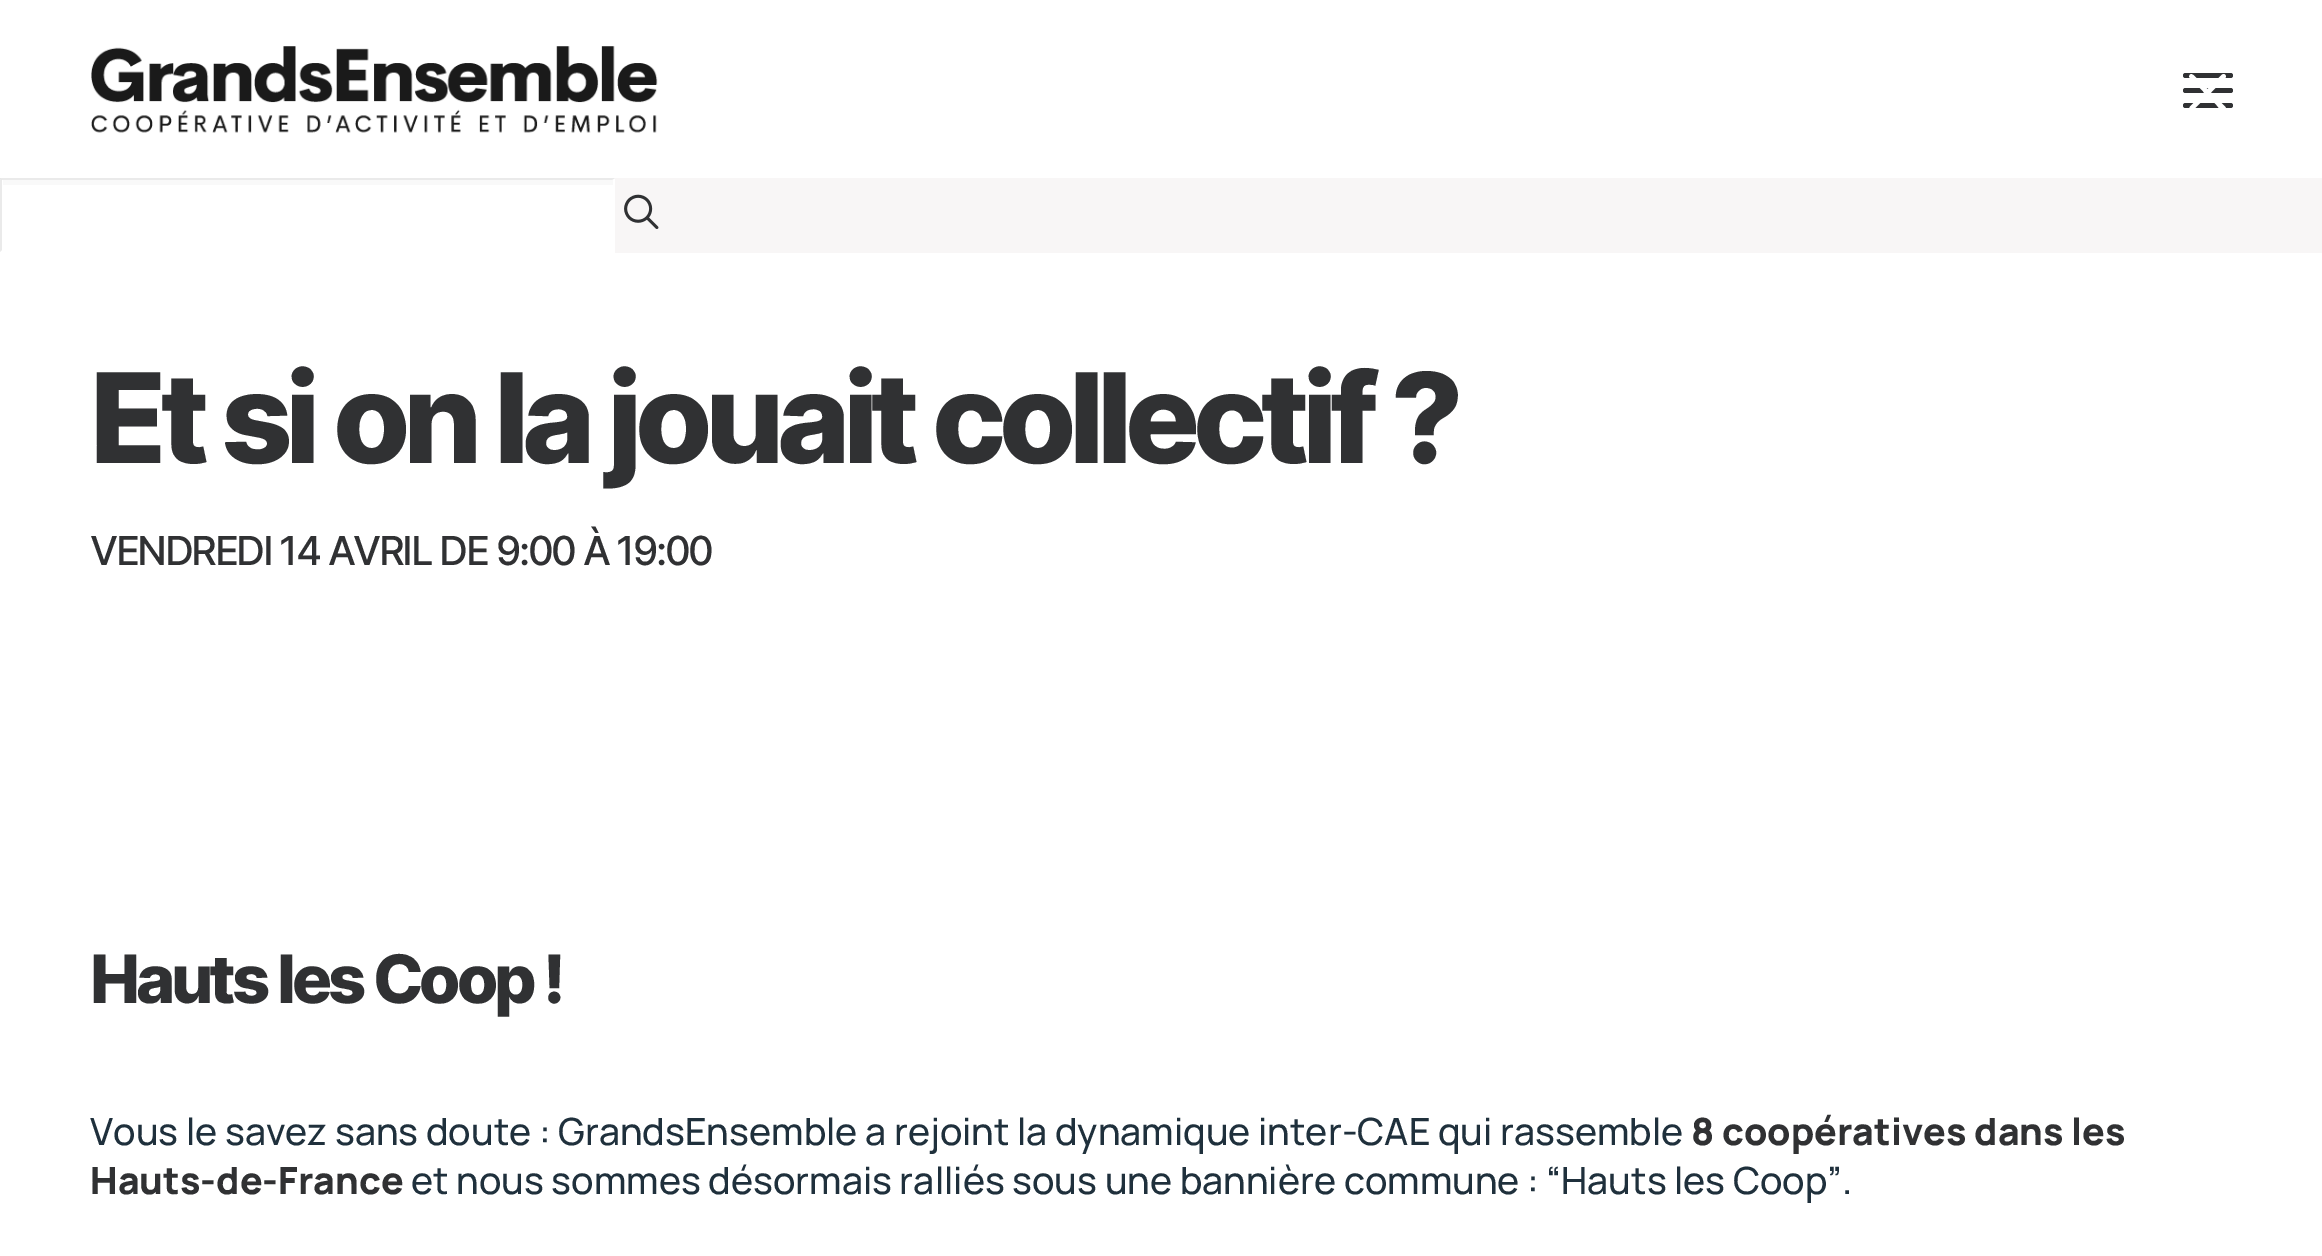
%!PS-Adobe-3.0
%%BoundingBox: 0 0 2322 1256
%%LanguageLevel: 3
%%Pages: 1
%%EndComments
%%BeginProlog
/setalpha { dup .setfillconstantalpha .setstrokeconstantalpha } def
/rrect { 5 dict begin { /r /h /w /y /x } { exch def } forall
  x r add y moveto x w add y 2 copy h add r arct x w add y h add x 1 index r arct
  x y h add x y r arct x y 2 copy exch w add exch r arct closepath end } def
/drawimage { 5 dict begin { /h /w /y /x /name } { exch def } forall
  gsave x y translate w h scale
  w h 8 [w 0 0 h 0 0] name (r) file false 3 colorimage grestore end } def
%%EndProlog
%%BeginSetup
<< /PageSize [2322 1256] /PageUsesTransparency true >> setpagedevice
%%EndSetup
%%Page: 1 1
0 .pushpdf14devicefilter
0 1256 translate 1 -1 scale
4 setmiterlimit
1 setgray
0 0 2322 1256 rectfill
(images/1.raw) 91 46 567 87 drawimage
0.188 0.192 0.2 setrgbcolor
2183 88 50 5 2.5 rrect fill
2183 73 50 5 2.5 rrect fill
2183 103 50 5 2.5 rrect fill
0.973 0.965 0.965 setrgbcolor
615 178 1707 75 rectfill
1 setgray
newpath 2193.5 75 moveto 2225.5 107 lineto 2226 108.5 lineto 2226 109 2225.5 110 2225 110.5 curveto 2221.5 112.5 2217 105.5 2216.5 105 curveto 2189.5 77.5 lineto 2188.5 76 2190 74 2191.5 74 curveto closepath fill
newpath 2190 106.5 moveto 2222 74.5 lineto 2223.5 74 lineto 2224 74 2225 74.5 2225.5 75 curveto 2227.5 78.5 2220.5 83 2220 83.5 curveto 2192.5 110.5 lineto 2191 111.5 2189 110 2189 108.5 curveto closepath fill
0.976 setgray
3 180 610 5 rectfill
0.918 setgray
newpath 0 178 moveto 615 178 lineto 612 180 lineto 2 180 lineto closepath fill
0.25 setalpha
0.667 setgray
newpath 0 252 moveto 0 178 lineto 2 180 lineto 2 250 lineto closepath fill
1 setalpha
(images/2.raw) 624 194 35 35 drawimage
/Inter-ExtraBold [125 0 0 -125 0 0] selectfont
0.188 0.192 0.2 setrgbcolor
90 463 moveto -7.5 0 (Et si on la jouait collectif ?) ashow
/Inter-Medium [40 0 0 -40 0 0] selectfont
90 565 moveto -2.4 0 (VENDREDI 14 AVRIL DE 9:00 À 19:00) ashow
/Inter-ExtraBold [66.75 0 0 -66.75 0 0] selectfont
90 1003 moveto -4 0 (Hauts les Coop !) ashow
/Manrope-ExtraLight [37.5 0 0 -37.5 0 0] selectfont
0.122 0.188 0.235 setrgbcolor
90 1145 moveto (Vous le savez sans doute : GrandsEnsemble a rejoint la dynamique inter-CAE qui rassemble) show
/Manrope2-ExtraLight [37.5 0 0 -37.5 0 0] selectfont
0.188 0.192 0.2 setrgbcolor
1691 1145 moveto (8 coopératives dans les) show
90 1194 moveto (Hauts-de-France) show
/Manrope-ExtraLight [37.5 0 0 -37.5 0 0] selectfont
0.122 0.188 0.235 setrgbcolor
411 1194 moveto (et nous sommes désormais ralliés sous une bannière commune : “Hauts les Coop”.) show
.poppdf14devicefilter showpage
%%EOF
